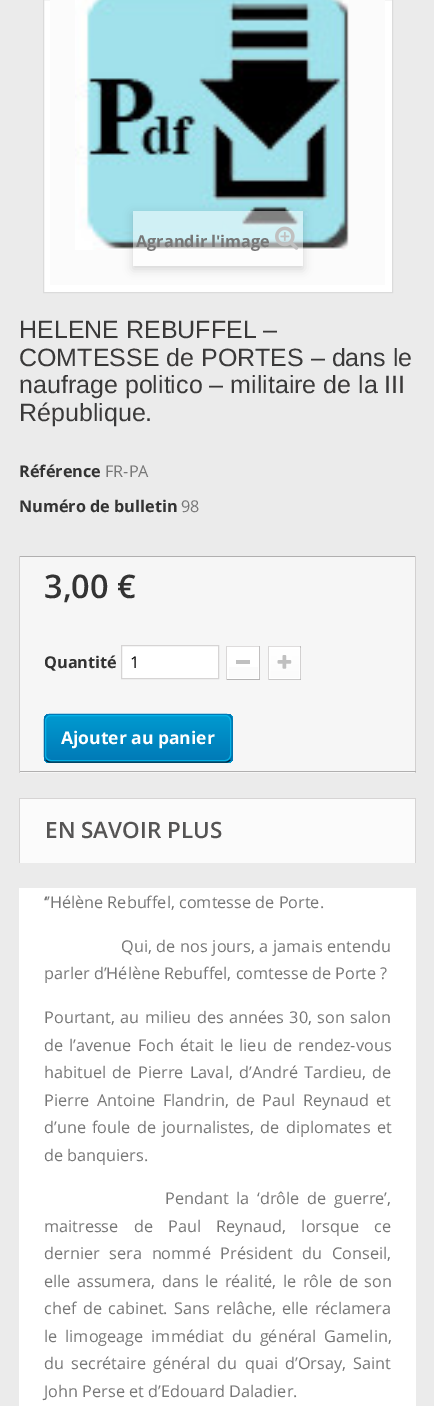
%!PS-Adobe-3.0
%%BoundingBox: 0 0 434 1406
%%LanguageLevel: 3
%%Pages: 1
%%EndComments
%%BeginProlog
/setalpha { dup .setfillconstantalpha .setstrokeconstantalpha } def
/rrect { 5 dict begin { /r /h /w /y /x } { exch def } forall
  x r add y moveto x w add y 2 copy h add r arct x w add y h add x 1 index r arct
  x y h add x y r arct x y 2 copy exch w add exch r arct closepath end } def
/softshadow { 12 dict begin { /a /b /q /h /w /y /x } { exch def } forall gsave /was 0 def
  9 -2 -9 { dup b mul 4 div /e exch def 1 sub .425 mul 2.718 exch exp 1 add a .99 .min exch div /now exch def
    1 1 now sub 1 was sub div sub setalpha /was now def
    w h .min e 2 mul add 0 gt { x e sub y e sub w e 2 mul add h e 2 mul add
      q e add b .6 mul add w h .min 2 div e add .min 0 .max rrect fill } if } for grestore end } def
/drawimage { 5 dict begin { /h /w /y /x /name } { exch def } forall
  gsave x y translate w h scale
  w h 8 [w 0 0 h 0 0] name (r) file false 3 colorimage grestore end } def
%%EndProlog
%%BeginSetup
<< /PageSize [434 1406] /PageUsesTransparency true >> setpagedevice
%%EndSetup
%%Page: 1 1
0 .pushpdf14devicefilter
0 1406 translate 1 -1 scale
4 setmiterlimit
0.922 setgray
0 0 434 1406 rectfill
1 setgray
newpath 43.5 -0.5 moveto 392.5 -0.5 lineto 392.5 292.5 lineto 43.5 292.5 lineto closepath gsave fill grestore
0.859 setgray
stroke
0.984 setgray
50 0 335 285 rectfill
(images/1.raw) 75 0 274 250 drawimage
gsave
newpath 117 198 moveto 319 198 lineto 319 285 lineto 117 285 lineto closepath 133 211 moveto 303 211 lineto 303 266 lineto 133 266 lineto closepath eoclip newpath
0 setgray
133 214 170 55 0 5 0.16 softshadow
grestore
0.5 setalpha
1 setgray
133 211 170 55 rectfill
1 setalpha
(images/2.raw) 275 226 24 24 drawimage
0.965 setgray
20 557 395 216 rectfill
0.69 0.686 0.686 setrgbcolor
19 556 397 1 rectfill
0.824 0.816 0.816 setrgbcolor
415 556 1 217 rectfill
0.69 0.686 0.686 setrgbcolor
19 771 397 1 rectfill
0.824 0.816 0.816 setrgbcolor
19 556 1 217 rectfill
1 setgray
newpath 121.5 645.5 moveto 218.5 645.5 lineto 218.5 678.5 lineto 121.5 678.5 lineto closepath gsave fill grestore
0.839 0.831 0.831 setrgbcolor
stroke
1 setgray
227 647 32 32 rectfill
0.871 0.863 0.863 setrgbcolor
226 646 34 1 rectfill
0.757 0.749 0.749 setrgbcolor
259 646 1 34 rectfill
0.71 0.706 0.706 setrgbcolor
226 679 34 1 rectfill
0.855 0.847 0.847 setrgbcolor
226 646 1 34 rectfill
gsave newpath 229 667 moveto 258 667 lineto 258 678 lineto 229 678 lineto closepath clip newpath
<< /ShadingType 2 /ColorSpace /DeviceRGB /Coords [243 649 243 678] /Extend [true true] /Function << /FunctionType 2 /Domain [0 1] /C0 [1 1 1] /C1 [0.984 0.984 0.984] /N 1 >> >> shfill grestore
0.753 setgray
236 660 14 4 rectfill
1 setgray
269 647 31 1 rectfill
0.871 0.863 0.863 setrgbcolor
268 646 33 1 rectfill
0.757 0.749 0.749 setrgbcolor
300 646 1 34 rectfill
0.71 0.706 0.706 setrgbcolor
268 679 33 1 rectfill
0.855 0.847 0.847 setrgbcolor
268 646 1 34 rectfill
gsave newpath 270 649 moveto 299 649 lineto 299 678 lineto 270 678 lineto closepath clip newpath
<< /ShadingType 2 /ColorSpace /DeviceRGB /Coords [284 649 284 678] /Extend [true true] /Function << /FunctionType 2 /Domain [0 1] /C0 [1 1 1] /C1 [0.984 0.984 0.984] /N 1 >> >> shfill grestore
1 setgray
269.5 648.5 30 30 rectstroke
(images/3.raw) 277 655 15 14 drawimage
gsave
44 714 189 49 6 rrect clip newpath
gsave newpath 44 714 moveto 233 714 lineto 233 715 lineto 44 715 lineto closepath clip newpath
<< /ShadingType 2 /ColorSpace /DeviceRGB /Coords [138 669 138 715] /Extend [true true] /Function << /FunctionType 2 /Domain [0 1] /C0 [0 0.604 0.816] /C1 [0 0.478 0.718] /N 1 >> >> shfill grestore
gsave newpath 44 715 moveto 233 715 lineto 233 761 lineto 44 761 lineto closepath clip newpath
<< /ShadingType 2 /ColorSpace /DeviceRGB /Coords [138 715 138 761] /Extend [true true] /Function << /FunctionType 2 /Domain [0 1] /C0 [0 0.604 0.816] /C1 [0 0.478 0.718] /N 1 >> >> shfill grestore
gsave newpath 44 761 moveto 233 761 lineto 233 763 lineto 44 763 lineto closepath clip newpath
<< /ShadingType 2 /ColorSpace /DeviceRGB /Coords [138 761 138 808] /Extend [true true] /Function << /FunctionType 2 /Domain [0 1] /C0 [0 0.604 0.816] /C1 [0 0.478 0.718] /N 1 >> >> shfill grestore
grestore
0 0.475 0.714 setrgbcolor
1.2 setlinewidth
newpath 46 716 moveto 47 715 48.5 714.5 50 714.5 curveto 226 714.5 lineto 227.5 714.5 229 715 230 716 curveto stroke
0 0.435 0.659 setrgbcolor
newpath 230 716 moveto 231.5 717 232 718.5 232 720 curveto 232 756 lineto 232 757.5 231.5 759 230 760 curveto stroke
0.004 0.153 0.251 setrgbcolor
newpath 230 760 moveto 229 761.5 227.5 762 226 762 curveto 50 762 lineto 48.5 762 47 761.5 46 760 curveto stroke
0 0.435 0.659 setrgbcolor
newpath 46 760 moveto 45 759 44.5 757.5 44.5 756 curveto 44.5 720 lineto 44.5 718.5 45 717 46 716 curveto stroke
0.024 0.698 0.902 setrgbcolor
1 setlinewidth
45.5 715.5 185 45 5.5 rrect stroke
0.984 setgray
20 799 395 64 rectfill
0.839 0.831 0.831 setrgbcolor
19 798 397 1 rectfill
415 798 1 65 rectfill
19 798 1 65 rectfill
1 setgray
19 888 397 518 rectfill
/OpenSans-Bold [16.25 0 0 -16.25 0 0] selectfont
0.467 setgray
136 247 moveto (Agrandir l'image) show
/LiberationSans-Regular [25 0 0 -25 0 0] selectfont
0.227 0.224 0.224 setrgbcolor
19 338 moveto (HELENE REBUFFEL –) show
19 366 moveto (COMTESSE de PORTES – dans le) show
19 393 moveto (naufrage politico – militaire de la III) show
19 421 moveto (République.) show
/OpenSans-Bold [16.25 0 0 -16.25 0 0] selectfont
0.2 setgray
19 477 moveto (Référence) show
/OpenSans-Regular [16.25 0 0 -16.25 0 0] selectfont
0.467 setgray
105 477 moveto (FR-PA) show
/OpenSans-Bold [16.25 0 0 -16.25 0 0] selectfont
0.2 setgray
19 512 moveto (Numéro de bulletin) show
/OpenSans-Regular [16.25 0 0 -16.25 0 0] selectfont
0.467 setgray
181 512 moveto (98) show
/OpenSans-SemiBold [32.5 0 0 -32.5 0 0] selectfont
0.2 setgray
44 598 moveto (3,00 €) show
/OpenSans-Bold [16.25 0 0 -16.25 0 0] selectfont
44 668 moveto (Quantité) show
/OpenSans-Regular [16.25 0 0 -16.25 0 0] selectfont
0 setgray
130 668 moveto (1) show
/OpenSans-Bold [17.5 0 0 -17.5 0 0] selectfont
1 setgray
61 744 moveto (Ajouter au panier) show
/OpenSans-SemiBold [22.5 0 0 -22.5 0 0] selectfont
0.333 0.329 0.329 setrgbcolor
45 838 moveto (EN SAVOIR PLUS) show
/OpenSans-Bold [16.25 0 0 -16.25 0 0] selectfont
0.467 setgray
44 908 moveto (‘) show
/OpenSans-Regular [16.25 0 0 -16.25 0 0] selectfont
47 908 moveto (’Hélène Rebuffel, comtesse de Porte.) show
121 952 moveto 0.5 0 32 (Qui, de nos jours, a jamais entendu) widthshow
44 979 moveto (parler d’Hélène Rebuffel, comtesse de Porte ?) show
44 1023 moveto 1.25 0 32 (Pourtant, au milieu des années 30, son salon) widthshow
44 1051 moveto 2 0 32 (de l’avenue Foch était le lieu de rendez-vous) widthshow
44 1078 moveto 2.25 0 32 (habituel de Pierre Laval, d’André Tardieu, de) widthshow
44 1106 moveto 3 0 32 (Pierre Antoine Flandrin, de Paul Reynaud et) widthshow
44 1133 moveto 2 0 32 (d’une foule de journalistes, de diplomates et) widthshow
44 1161 moveto (de banquiers.) show
165 1204 moveto 3.5 0 32 (Pendant la ‘drôle de guerre’,) widthshow
44 1232 moveto 11 0 32 (maitresse de Paul Reynaud, lorsque ce) widthshow
44 1259 moveto 5.5 0 32 (dernier sera nommé Président du Conseil,) widthshow
44 1287 moveto 2.25 0 32 (elle assumera, dans le réalité, le rôle de son) widthshow
44 1314 moveto 2 0 32 (chef de cabinet. Sans relâche, elle réclamera) widthshow
44 1342 moveto 3.75 0 32 (le limogeage immédiat du général Gamelin,) widthshow
44 1369 moveto 3 0 32 (du secrétaire général du quai d’Orsay, Saint) widthshow
44 1397 moveto (John Perse et d’Edouard Daladier.) show
.poppdf14devicefilter showpage
%%EOF
